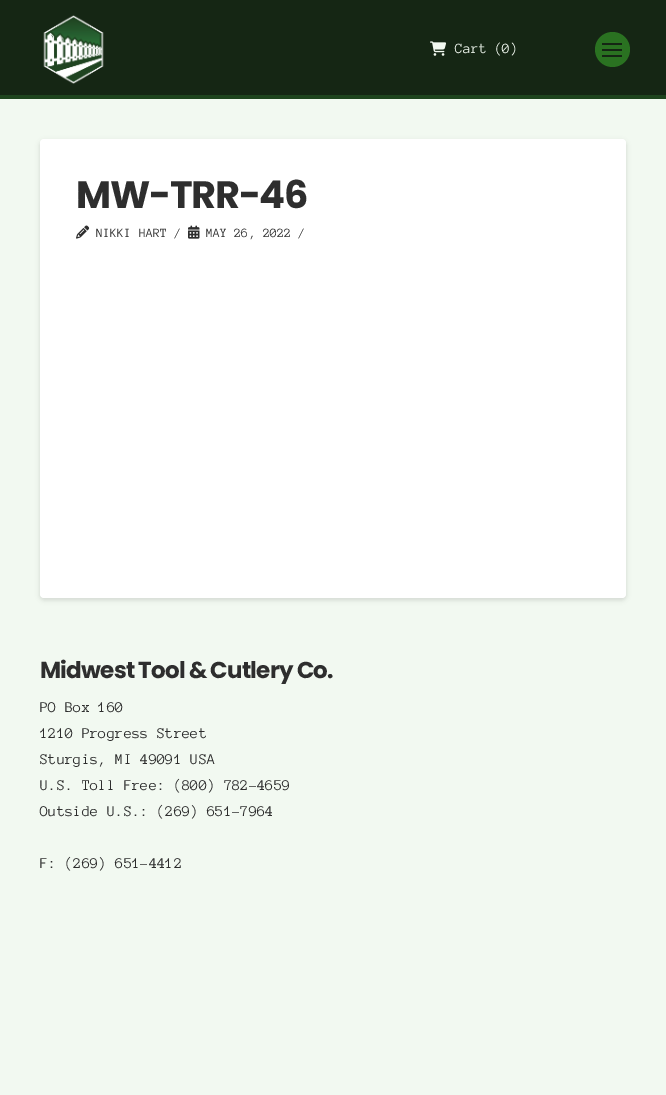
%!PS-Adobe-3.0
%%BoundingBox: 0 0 666 1095
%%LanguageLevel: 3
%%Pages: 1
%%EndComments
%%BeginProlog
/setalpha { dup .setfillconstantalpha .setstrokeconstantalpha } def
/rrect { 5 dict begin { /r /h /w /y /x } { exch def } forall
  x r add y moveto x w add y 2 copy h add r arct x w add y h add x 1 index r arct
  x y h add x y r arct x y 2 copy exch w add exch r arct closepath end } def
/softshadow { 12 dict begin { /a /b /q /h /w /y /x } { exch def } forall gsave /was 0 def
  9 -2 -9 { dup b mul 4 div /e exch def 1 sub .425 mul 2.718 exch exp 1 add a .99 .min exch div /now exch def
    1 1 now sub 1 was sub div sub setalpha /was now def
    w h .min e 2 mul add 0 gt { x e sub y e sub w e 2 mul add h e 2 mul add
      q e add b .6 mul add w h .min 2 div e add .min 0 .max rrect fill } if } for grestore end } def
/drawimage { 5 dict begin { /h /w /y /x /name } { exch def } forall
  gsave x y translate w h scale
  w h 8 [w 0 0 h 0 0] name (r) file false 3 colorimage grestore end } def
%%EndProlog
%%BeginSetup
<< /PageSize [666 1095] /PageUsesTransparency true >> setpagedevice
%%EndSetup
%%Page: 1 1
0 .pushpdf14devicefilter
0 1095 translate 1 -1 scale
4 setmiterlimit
0.949 0.976 0.945 setrgbcolor
0 0 666 1095 rectfill
0.118 0.267 0.118 setrgbcolor
0 95 666 4 rectfill
0.082 0.149 0.078 setrgbcolor
0 0 666 95 rectfill
(images/1.raw) 43 15 61 69 drawimage
(images/2.raw) 430 41 16 15 drawimage
0.165 0.447 0.129 setrgbcolor
newpath 612.5 49.5 17.5 0 360 arc closepath fill
0.082 0.149 0.078 setrgbcolor
602 43 20 2 rectfill
602 49 20 2 rectfill
602 55 20 2 rectfill
0 setgray
40 141 586 459 4 2.5 0.13 softshadow
1 setgray
40 139 586 459 4 rrect fill
(images/3.raw) 76 225 14 14 drawimage
(images/4.raw) 188 225 12 14 drawimage
/AnonymousPro-Regular [14.5 0 0 -14.5 0 0] selectfont
0.949 0.976 0.945 setrgbcolor
455 53 moveto (Cart \(0\)) show
/Poppins-Bold [38.25 0 0 -38.25 0 0] selectfont
0.18 setgray
76 208 moveto -1.25 0 (MW-TRR-46) ashow
/AnonymousPro-Regular [13 0 0 -13 0 0] selectfont
96 237 moveto (NIKKI HART) show
174 237 moveto (/) show
206 237 moveto (MAY 26, 2022) show
298 237 moveto (/) show
/Poppins-Bold [23 0 0 -23 0 0] selectfont
40 678 moveto -0.8 0 (Midwest Tool & Cutlery Co.) ashow
/AnonymousPro-Regular [15.3 0 0 -15.3 0 0] selectfont
40 712 moveto (PO Box 160) show
40 738 moveto (1210 Progress Street) show
40 764 moveto (Sturgis, MI 49091 USA) show
40 790 moveto (U.S. Toll Free: \(800\) 782-4659) show
40 816 moveto (Outside U.S.: \(269\) 651-7964) show
40 868 moveto (F: \(269\) 651-4412) show
.poppdf14devicefilter showpage
%%EOF
